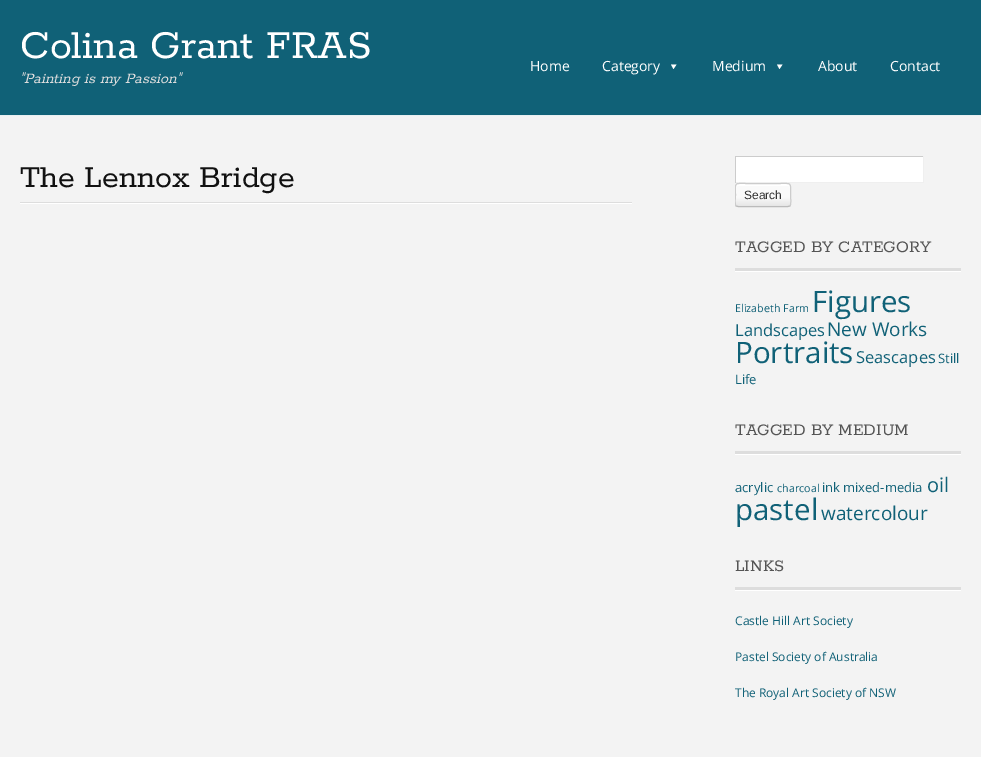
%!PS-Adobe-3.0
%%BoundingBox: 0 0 981 757
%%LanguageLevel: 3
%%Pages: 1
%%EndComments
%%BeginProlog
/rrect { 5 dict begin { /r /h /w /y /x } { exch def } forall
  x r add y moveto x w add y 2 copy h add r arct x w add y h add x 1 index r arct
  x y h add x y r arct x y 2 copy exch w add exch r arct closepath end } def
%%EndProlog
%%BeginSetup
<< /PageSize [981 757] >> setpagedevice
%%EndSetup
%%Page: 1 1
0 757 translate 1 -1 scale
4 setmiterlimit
0.953 setgray
0 0 981 757 rectfill
0.063 0.38 0.467 setrgbcolor
0 0 981 115 rectfill
0.906 0.937 0.945 setrgbcolor
0 115 981 1 rectfill
1 setgray
newpath 676.5 64.5 moveto 673.5 69 lineto 671 64.5 lineto closepath fill
newpath 782.5 64.5 moveto 779.5 69 lineto 777 64.5 lineto closepath fill
20 203 612 1 rectfill
0.867 setgray
20 202 612 1 rectfill
1 setgray
736 157 187 25 rectfill
0.8 setgray
735 156 189 1 rectfill
0.937 setgray
923 156 1 27 rectfill
735 182 189 1 rectfill
0.8 setgray
735 156 1 27 rectfill
gsave
735 183 56 24 3 rrect clip newpath
gsave newpath 735 184 moveto 791 184 lineto 791 206 lineto 735 206 lineto closepath clip newpath
<< /ShadingType 2 /ColorSpace /DeviceRGB /Coords [763 184 763 206] /Extend [true true] /Function << /FunctionType 3 /Domain [0 1] /Functions [<< /FunctionType 2 /Domain [0 1] /C0 [0.98 0.98 0.98] /C1 [0.98 0.98 0.98] /N 1 >> << /FunctionType 2 /Domain [0 1] /C0 [0.98 0.98 0.98] /C1 [0.902 0.902 0.902] /N 1 >>] /Bounds [0.6] /Encode [0 1 0 1] >> >> shfill grestore
grestore
1 setgray
newpath 738 186 moveto 788 186 lineto 789 186 790 187 790 188 curveto 790 182 786 184 780 184 curveto 746 184 lineto 740 184 736 182 736 188 curveto 736 187 737 186 738 186 curveto closepath fill
0.733 setgray
newpath 790 206 moveto 788 206.5 lineto 738 206.5 lineto 736 206 lineto stroke
gsave
735 156 226 577 rectclip
0.8 setgray
newpath 736 206 moveto 734.5 204 735.5 197 735.5 195 curveto 735.5 182 733.5 183.5 746.5 183.5 curveto 779.5 183.5 lineto 792.5 183.5 790.5 182 790.5 195 curveto 790.5 197 791.5 204 790 206 curveto stroke
grestore
1 setgray
735 271 226 1 rectfill
0.867 setgray
735 268 226 3 rectfill
1 setgray
735 454 226 1 rectfill
0.867 setgray
735 451 226 3 rectfill
1 setgray
735 590 226 1 rectfill
0.867 setgray
735 587 226 3 rectfill
/Rokkitt-Regular [44 0 0 -44 0 0] selectfont
1 setgray
20 58 moveto (Colina Grant FRAS) show
/Rokkitt-Italic [16 0 0 -16 0 0] selectfont
0.867 setgray
20 83 moveto ("Painting is my Passion") show
/OpenSans-Regular [14 0 0 -14 0 0] selectfont
1 setgray
530 71 moveto (Home) show
602 71 moveto (Category) show
712 71 moveto (Medium) show
818 71 moveto (About) show
890 71 moveto (Contact) show
/Rokkitt-Regular [34 0 0 -34 0 0] selectfont
0.067 setgray
20 187 moveto (The Lennox Bridge) show
/LiberationSans-Regular [12 0 0 -12 0 0] selectfont
0.196 setgray
744 199 moveto (Search) show
/Rokkitt-Regular [18 0 0 -18 0 0] selectfont
0.333 setgray
735 252 moveto (TAGGED BY CATEGORY) show
/OpenSans-Regular [10.75 0 0 -10.75 0 0] selectfont
0.063 0.38 0.467 setrgbcolor
735 312 moveto (Elizabeth Farm) show
/OpenSans-Regular [29.5 0 0 -29.5 0 0] selectfont
812 312 moveto (Figures) show
/OpenSans-Regular [16.5 0 0 -16.5 0 0] selectfont
735 336 moveto (Landscapes) show
/OpenSans-Regular [19 0 0 -19 0 0] selectfont
827 336 moveto (New Works) show
/OpenSans-Regular [29.5 0 0 -29.5 0 0] selectfont
735 363 moveto (Portraits) show
/OpenSans-Regular [16.5 0 0 -16.5 0 0] selectfont
856 363 moveto (Seascapes) show
/OpenSans-Regular [13 0 0 -13 0 0] selectfont
938 363 moveto (Still) show
735 384 moveto (Life) show
/Rokkitt-Regular [18 0 0 -18 0 0] selectfont
0.333 setgray
735 435 moveto (TAGGED BY MEDIUM) show
/OpenSans-Regular [13 0 0 -13 0 0] selectfont
0.063 0.38 0.467 setrgbcolor
735 492 moveto (acrylic) show
/OpenSans-Regular [10.75 0 0 -10.75 0 0] selectfont
777 492 moveto (charcoal) show
/OpenSans-Regular [13 0 0 -13 0 0] selectfont
822 492 moveto (ink) show
843 492 moveto (mixed-media) show
/OpenSans-Regular [20 0 0 -20 0 0] selectfont
927 492 moveto (oil) show
/OpenSans-Regular [29.5 0 0 -29.5 0 0] selectfont
735 520 moveto (pastel) show
/OpenSans-Regular [19 0 0 -19 0 0] selectfont
821 520 moveto (watercolour) show
/Rokkitt-Regular [18 0 0 -18 0 0] selectfont
0.333 setgray
735 571 moveto (LINKS) show
/OpenSans-Regular [12 0 0 -12 0 0] selectfont
0.063 0.38 0.467 setrgbcolor
735 625 moveto (Castle Hill Art Society) show
735 661 moveto (Pastel Society of Australia) show
735 697 moveto (The Royal Art Society of NSW) show
showpage
%%EOF
